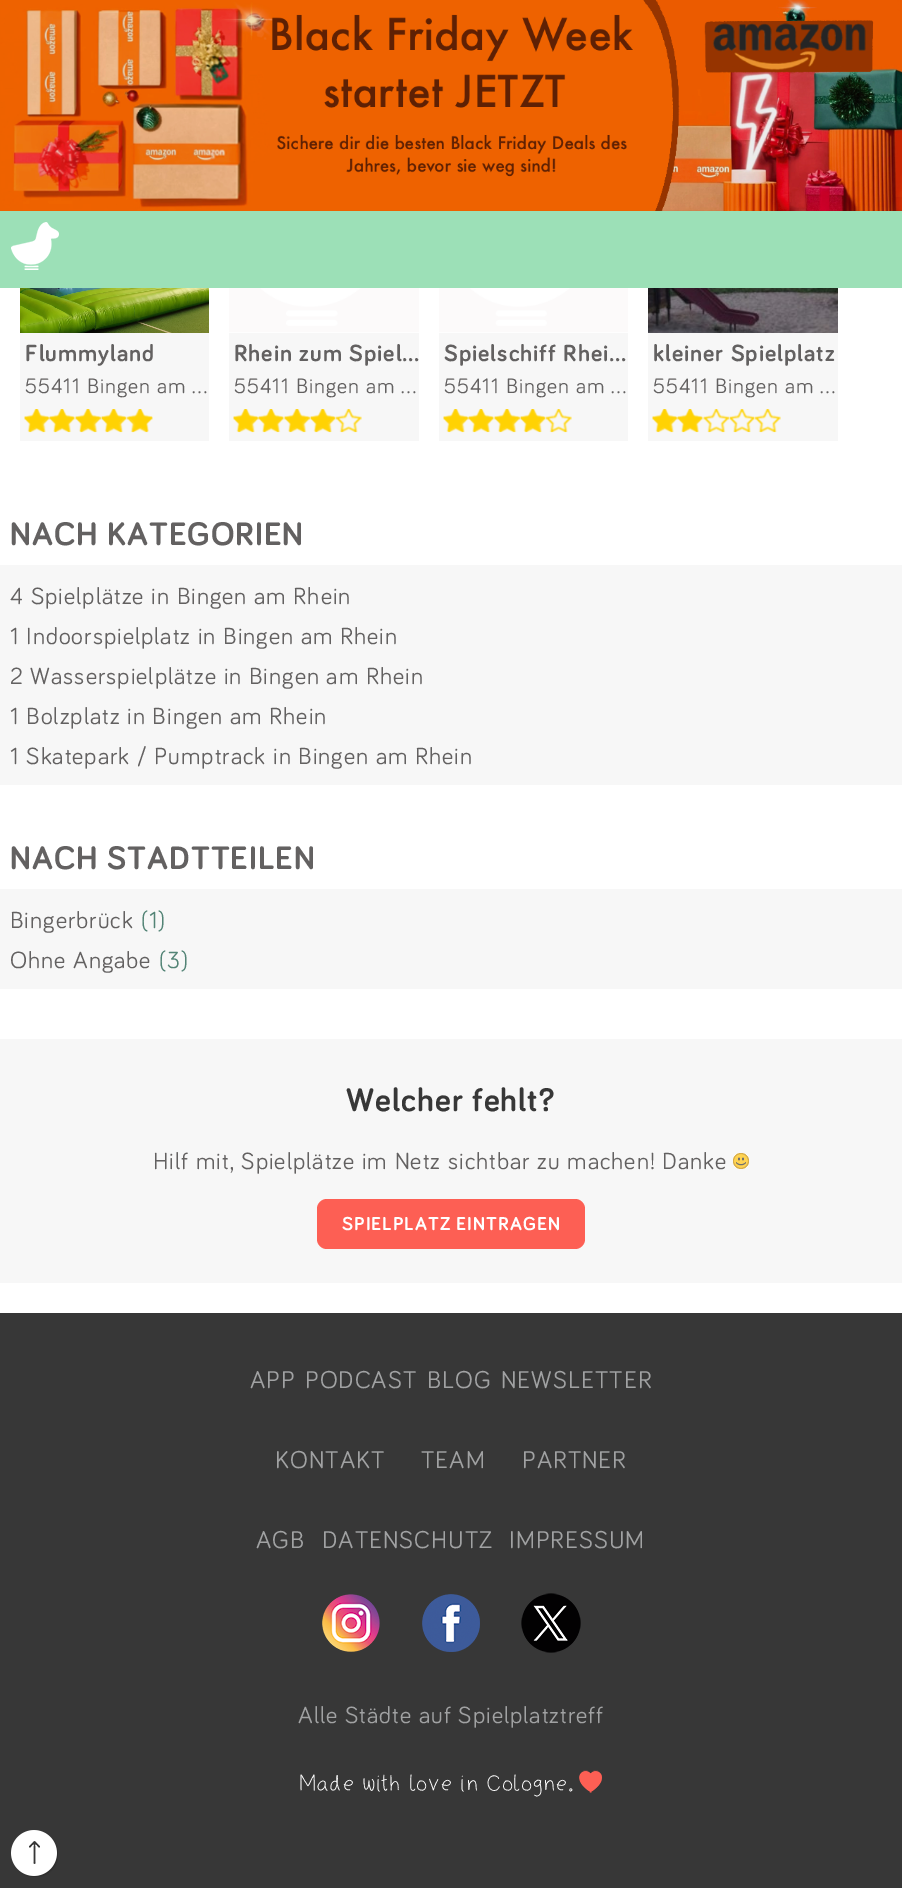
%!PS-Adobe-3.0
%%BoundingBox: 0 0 902 1888
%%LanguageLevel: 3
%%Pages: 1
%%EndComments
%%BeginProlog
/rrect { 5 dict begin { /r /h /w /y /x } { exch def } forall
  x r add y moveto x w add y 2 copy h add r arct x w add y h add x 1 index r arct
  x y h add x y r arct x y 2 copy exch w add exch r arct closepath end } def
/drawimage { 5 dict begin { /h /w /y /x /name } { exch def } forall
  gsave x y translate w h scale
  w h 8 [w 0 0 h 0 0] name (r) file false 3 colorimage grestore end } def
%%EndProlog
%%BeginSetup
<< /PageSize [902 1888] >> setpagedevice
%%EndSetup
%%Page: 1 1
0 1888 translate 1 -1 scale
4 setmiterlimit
1 setgray
0 0 902 1888 rectfill
0.612 0.878 0.718 setrgbcolor
0 211 902 77 rectfill
(images/1.raw) 0 0 902 211 drawimage
(images/2.raw) 11 222 48 48 drawimage
0.969 setgray
20 333 189 108 rectfill
(images/3.raw) 20 288 189 45 drawimage
(images/4.raw) 24 409 129 24 drawimage
229 333 190 108 rectfill
(images/5.raw) 229 288 190 45 drawimage
(images/6.raw) 233 409 129 24 drawimage
439 333 189 108 rectfill
(images/7.raw) 439 288 189 45 drawimage
(images/6.raw) 443 409 129 24 drawimage
648 333 190 108 rectfill
(images/8.raw) 648 288 190 45 drawimage
(images/9.raw) 652 409 129 24 drawimage
0 565 902 220 rectfill
0 889 902 100 rectfill
0 1039 902 244 rectfill
(images/10.raw) 733 1153 16 16 drawimage
0.992 0.373 0.329 setrgbcolor
317 1199 268 50 10 rrect fill
0.216 setgray
0 1313 902 575 rectfill
(images/11.raw) 11 1830 47 47 drawimage
(images/12.raw) 322 1594 58 58 drawimage
(images/13.raw) 422 1594 58 58 drawimage
(images/14.raw) 521 1593 60 60 drawimage
(images/15.raw) 579 1770 23 23 drawimage
/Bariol-Bold [24 0 0 -24 0 0] selectfont
0.388 0.38 0.38 setrgbcolor
25 361 moveto 1 0 (Flummyland) ashow
/Bariol-Regular [21.5 0 0 -21.5 0 0] selectfont
25 393 moveto 1 0 (55411 Bingen am …) ashow
/Bariol-Bold [24 0 0 -24 0 0] selectfont
234 361 moveto 1 0 (Rhein zum Spiel…) ashow
/Bariol-Regular [21.5 0 0 -21.5 0 0] selectfont
234 393 moveto 1 0 (55411 Bingen am …) ashow
/Bariol-Bold [24 0 0 -24 0 0] selectfont
444 361 moveto 1 0 (Spielschiff Rhei…) ashow
/Bariol-Regular [21.5 0 0 -21.5 0 0] selectfont
444 393 moveto 1 0 (55411 Bingen am …) ashow
/Bariol-Bold [24 0 0 -24 0 0] selectfont
653 361 moveto 1 0 (kleiner Spielplatz) ashow
/Bariol-Regular [21.5 0 0 -21.5 0 0] selectfont
653 393 moveto 1 0 (55411 Bingen am …) ashow
/Bariol-Bold [33.5 0 0 -33.5 0 0] selectfont
10 545 moveto 1 0 (NACH KATEGORIEN) ashow
/Bariol-Regular [24 0 0 -24 0 0] selectfont
10 604 moveto 1 0 (4 Spielplätze in Bingen am Rhein) ashow
10 644 moveto 1 0 (1 Indoorspielplatz in Bingen am Rhein) ashow
10 684 moveto 1 0 (2 Wasserspielplätze in Bingen am Rhein) ashow
10 724 moveto 1 0 (1 Bolzplatz in Bingen am Rhein) ashow
10 764 moveto 1 0 (1 Skatepark / Pumptrack in Bingen am Rhein) ashow
/Bariol-Bold [33.5 0 0 -33.5 0 0] selectfont
10 869 moveto 1 0 (NACH STADTTEILEN) ashow
/Bariol-Regular [24 0 0 -24 0 0] selectfont
10 928 moveto 1 0 (Bingerbrück) ashow
0.325 0.518 0.463 setrgbcolor
141 928 moveto 1 0 (\(1\)) ashow
0.388 0.38 0.38 setrgbcolor
10 968 moveto 1 0 (Ohne Angabe) ashow
0.325 0.518 0.463 setrgbcolor
159 968 moveto 1 0 (\(3\)) ashow
/Bariol-Bold [33.5 0 0 -33.5 0 0] selectfont
0.216 setgray
346 1111 moveto 1 0 (Welcher fehlt?) ashow
/Bariol-Regular [24 0 0 -24 0 0] selectfont
0.388 0.38 0.38 setrgbcolor
153 1169 moveto 1 0 (Hilf mit, Spielplätze im Netz sichtbar zu machen! Danke) ashow
/Bariol-Bold [19.25 0 0 -19.25 0 0] selectfont
1 setgray
342 1230 moveto 1 0 (SPIELPLATZ EINTRAGEN) ashow
/Bariol-Regular [25 0 0 -25 0 0] selectfont
0.631 0.635 0.639 setrgbcolor
250 1388 moveto 1 0 (APP) ashow
305 1388 moveto 1 0 (PODCAST) ashow
427 1388 moveto 1 0 (BLOG) ashow
501 1388 moveto 1 0 (NEWSLETTER) ashow
275 1468 moveto 1 0 (KONTAKT) ashow
421 1468 moveto 1 0 (TEAM) ashow
522 1468 moveto 1 0 (PARTNER) ashow
256 1548 moveto 1 0 (AGB) ashow
322 1548 moveto 1 0 (DATENSCHUTZ) ashow
509 1548 moveto 1 0 (IMPRESSUM) ashow
/Bariol-Regular [24 0 0 -24 0 0] selectfont
298 1723 moveto 1 0 (Alle Städte auf Spielplatztreff) ashow
/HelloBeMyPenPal-Medium [24 0 0 -24 0 0] selectfont
1 setgray
299 1791 moveto 1 0 (Made with love in Cologne.) ashow
showpage
%%EOF
